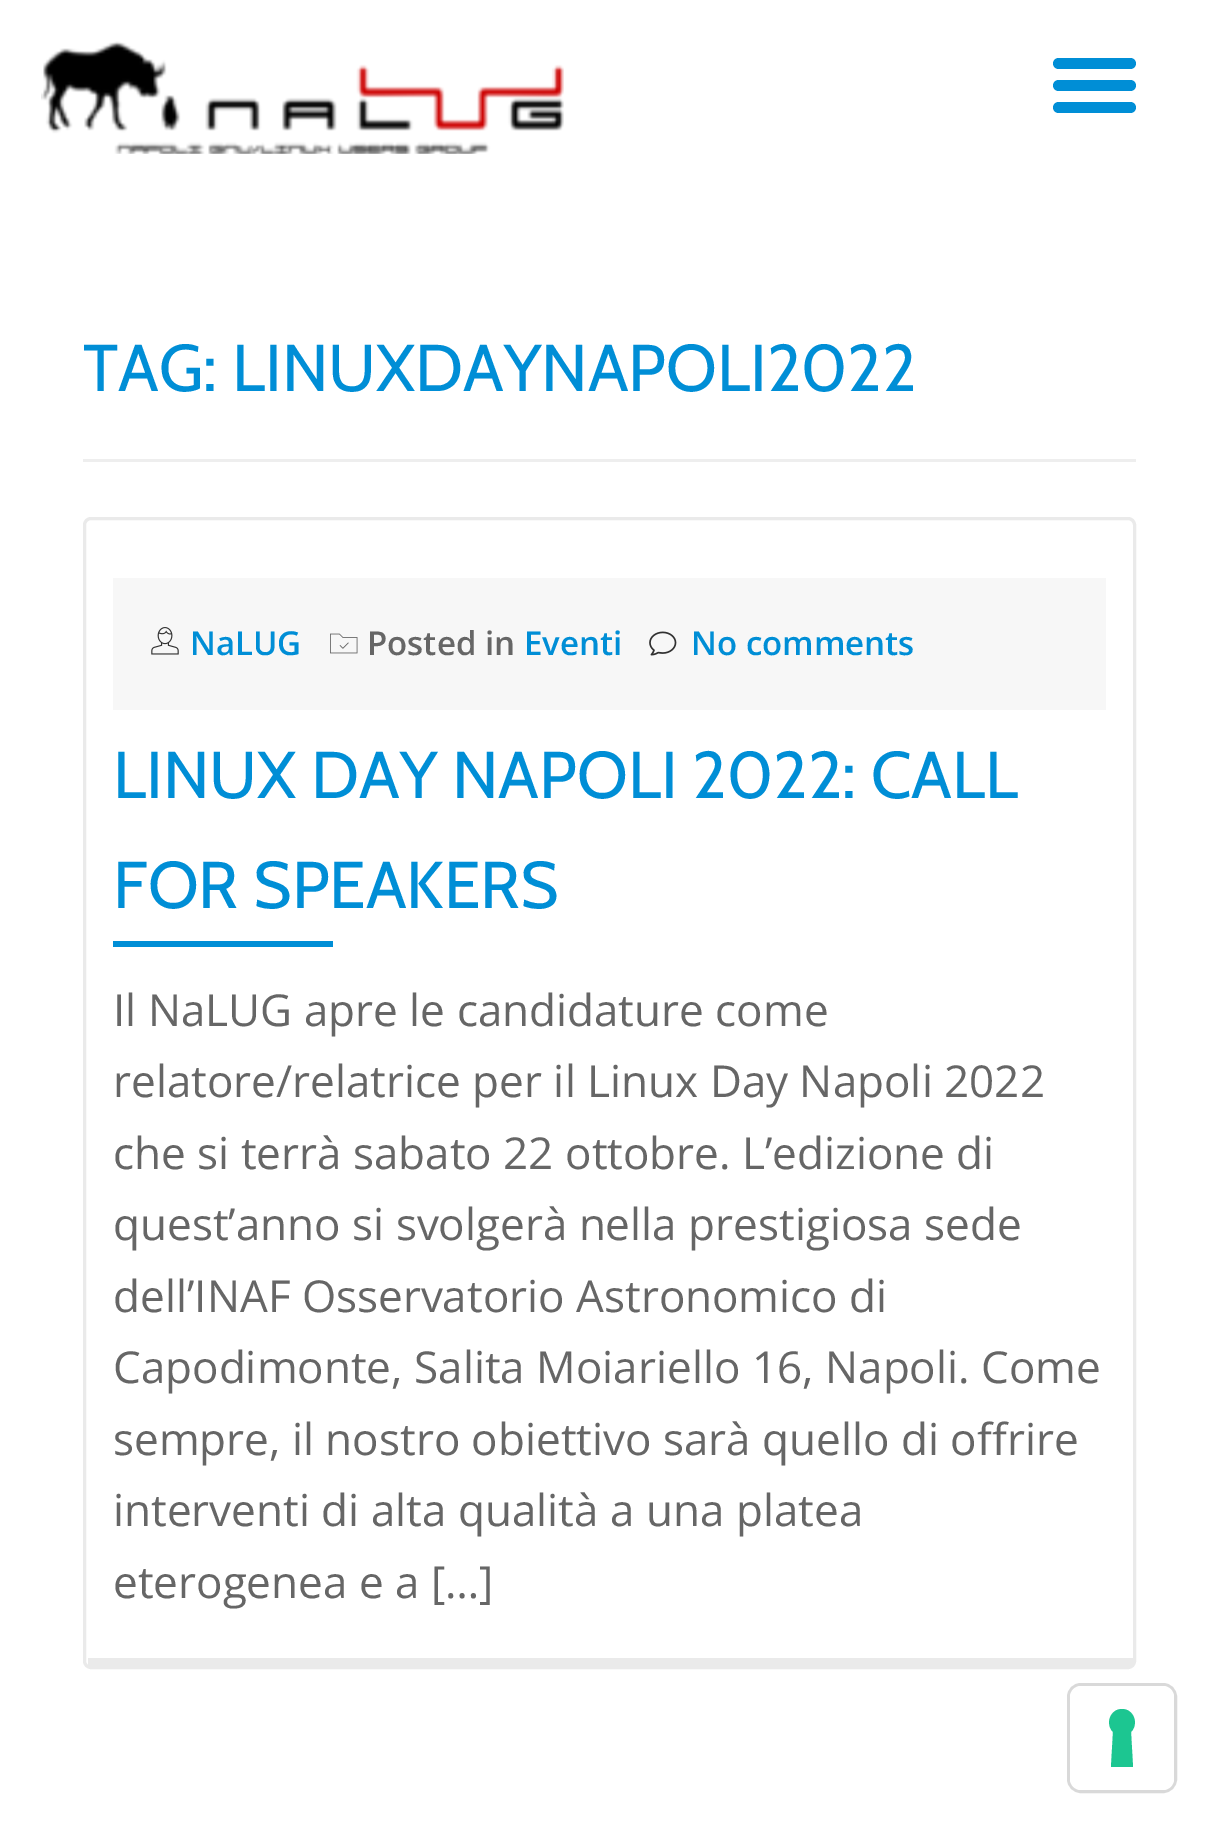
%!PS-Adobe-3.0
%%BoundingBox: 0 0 1217 1834
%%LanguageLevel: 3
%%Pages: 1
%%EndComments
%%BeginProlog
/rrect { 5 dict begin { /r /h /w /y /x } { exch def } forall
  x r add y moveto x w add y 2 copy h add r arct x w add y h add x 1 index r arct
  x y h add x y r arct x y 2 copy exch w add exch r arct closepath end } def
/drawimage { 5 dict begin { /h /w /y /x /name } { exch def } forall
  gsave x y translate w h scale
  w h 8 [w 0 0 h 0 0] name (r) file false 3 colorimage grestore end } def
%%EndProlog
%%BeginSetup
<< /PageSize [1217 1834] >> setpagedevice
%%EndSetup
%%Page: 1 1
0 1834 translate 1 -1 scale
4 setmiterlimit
1 setgray
0 0 1217 1834 rectfill
(images/1.raw) 41 41 523 113 drawimage
0 0.557 0.839 setrgbcolor
1053 58 83 11 5.5 rrect fill
1053 80 83 11 5.5 rrect fill
1053 102 83 11 5.5 rrect fill
0.933 setgray
83 459 1053 3 rectfill
0.918 setgray
3 setlinewidth
84.5 518.5 1050 1149 6.5 rrect stroke
88 1658 1045 8 rectfill
0.969 setgray
113 578 993 132 rectfill
(images/2.raw) 151 627 28 28 drawimage
(images/3.raw) 330 633 28 21 drawimage
(images/4.raw) 649 631 28 25 drawimage
0 0.557 0.839 setrgbcolor
113 941 220 6 rectfill
0.851 setgray
1068.5 1684.5 107 107 12.5 rrect stroke
1 setgray
1070 1686 104 104 11 rrect fill
0.11 0.776 0.569 setrgbcolor
newpath 1122 1709 moveto 1134 1709 1139 1724 1131 1732 curveto 1133 1767 lineto 1111 1767 lineto 1113 1732 lineto 1105 1724 1110 1709 1122 1709 curveto closepath eofill
/Cabin-Regular [66 0 0 -66 0 0] selectfont
0 0.557 0.839 setrgbcolor
83 391 moveto (TAG: LINUXDAYNAPOLI2022) show
/OpenSans-SemiBold [33 0 0 -33 0 0] selectfont
190 655 moveto (NaLUG) show
0.4 setgray
367 655 moveto (Posted in) show
0 0.557 0.839 setrgbcolor
524 655 moveto (Eventi) show
691 655 moveto (No comments) show
/Cabin-Regular [66 0 0 -66 0 0] selectfont
113 798 moveto (LINUX DAY NAPOLI 2022: CALL) show
113 908 moveto (FOR SPEAKERS) show
/OpenSans-Regular [44 0 0 -44 0 0] selectfont
0.4 setgray
113 1026 moveto (Il NaLUG apre le candidature come) show
113 1097 moveto (relatore/relatrice per il Linux Day Napoli 2022) show
113 1169 moveto (che si terrà sabato 22 ottobre. L’edizione di) show
113 1240 moveto (quest’anno si svolgerà nella prestigiosa sede) show
113 1312 moveto (dell’INAF Osservatorio Astronomico di) show
113 1383 moveto (Capodimonte, Salita Moiariello 16, Napoli. Come) show
113 1455 moveto (sempre, il nostro obiettivo sarà quello di offrire) show
113 1526 moveto (interventi di alta qualità a una platea) show
113 1598 moveto (eterogenea e a […]) show
showpage
%%EOF
